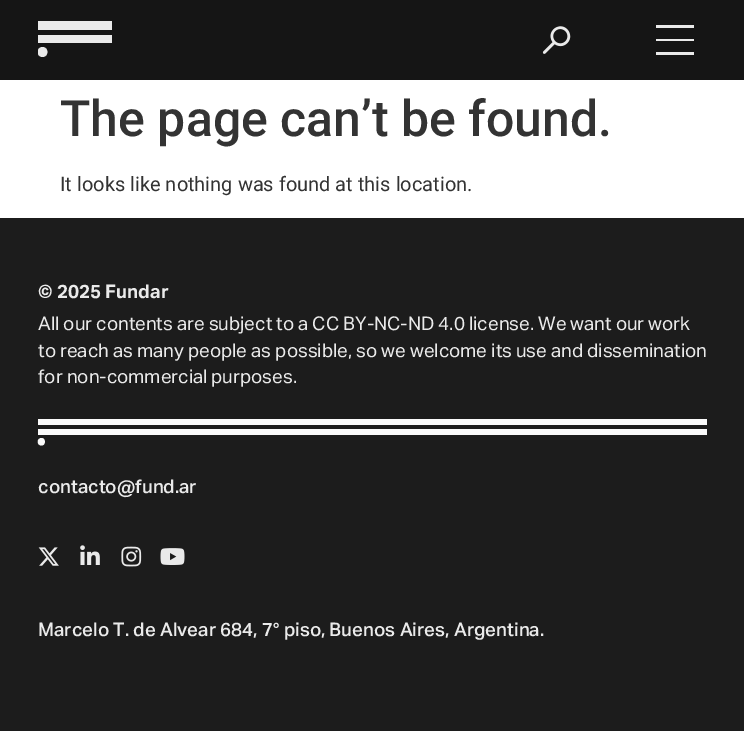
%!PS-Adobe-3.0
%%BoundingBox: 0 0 744 744
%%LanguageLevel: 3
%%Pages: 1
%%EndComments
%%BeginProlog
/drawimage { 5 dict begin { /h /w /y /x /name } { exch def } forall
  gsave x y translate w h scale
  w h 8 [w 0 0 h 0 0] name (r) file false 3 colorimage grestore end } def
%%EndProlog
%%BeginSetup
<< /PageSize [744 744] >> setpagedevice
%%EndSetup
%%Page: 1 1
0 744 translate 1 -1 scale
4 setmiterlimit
1 setgray
0 0 744 744 rectfill
0.082 setgray
0 0 744 80 rectfill
gsave
38 21 75 39 rectclip
0.918 setgray
newpath 42.5 47 moveto 36 47 36 57 42.5 57 curveto 49 57 49 47 42.5 47 curveto closepath fill
grestore
0.918 setgray
38 21 74 9 rectfill
38 35 74 8 rectfill
(images/1.raw) 542 26 29 28 drawimage
656 25 38 3 rectfill
656 39 38 2 rectfill
656 52 38 3 rectfill
0.11 setgray
0 218 744 513 rectfill
0.98 setgray
newpath 41.5 438 moveto 36.5 438 36.5 445.5 41.5 445.5 curveto 46 445.5 46 438 41.5 438 curveto closepath fill
38 419 669 6 rectfill
38 429 669 6 rectfill
(images/2.raw) 38 547 21 19 drawimage
(images/3.raw) 80 545 20 20 drawimage
(images/4.raw) 121 546 21 21 drawimage
(images/5.raw) 160 548 25 17 drawimage
/Roboto-Medium [50 0 0 -50 0 0] selectfont
0.2 setgray
60 136 moveto (The page can’t be found.) show
/Roboto-Regular [20 0 0 -20 0 0] selectfont
60 191 moveto (It looks like nothing was found at this location.) show
/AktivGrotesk-Bold [18.75 0 0 -18.75 0 0] selectfont
0.918 setgray
38 298 moveto (© 2025 Fundar) show
/AktivGrotesk-Regular [18.75 0 0 -18.75 0 0] selectfont
38 330 moveto (All our contents are subject to a CC BY-NC-ND 4.0 license. We want our work) show
38 357 moveto (to reach as many people as possible, so we welcome its use and dissemination) show
38 383 moveto (for non-commercial purposes.) show
/AktivGrotesk-Medium [18.75 0 0 -18.75 0 0] selectfont
38 493 moveto (contacto@fund.ar) show
38 636 moveto (Marcelo T. de Alvear 684, 7° piso, Buenos Aires, Argentina.) show
showpage
%%EOF
